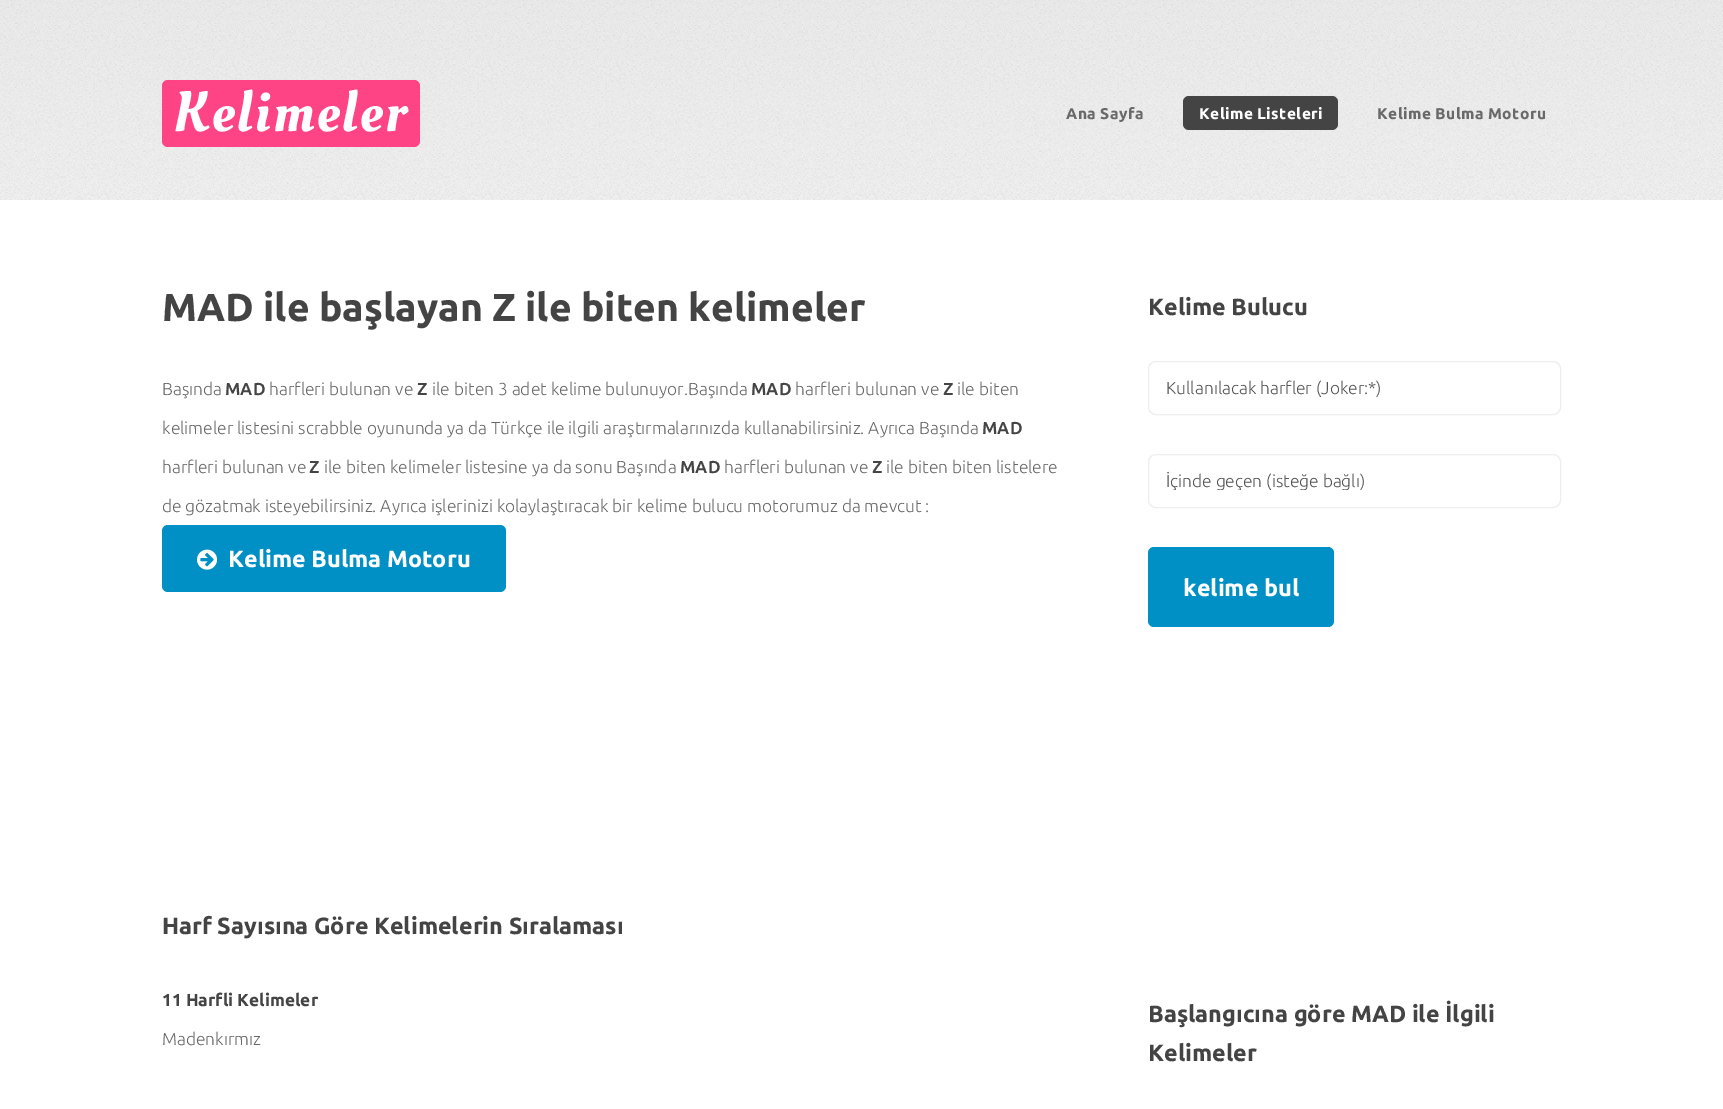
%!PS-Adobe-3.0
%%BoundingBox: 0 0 1723 1109
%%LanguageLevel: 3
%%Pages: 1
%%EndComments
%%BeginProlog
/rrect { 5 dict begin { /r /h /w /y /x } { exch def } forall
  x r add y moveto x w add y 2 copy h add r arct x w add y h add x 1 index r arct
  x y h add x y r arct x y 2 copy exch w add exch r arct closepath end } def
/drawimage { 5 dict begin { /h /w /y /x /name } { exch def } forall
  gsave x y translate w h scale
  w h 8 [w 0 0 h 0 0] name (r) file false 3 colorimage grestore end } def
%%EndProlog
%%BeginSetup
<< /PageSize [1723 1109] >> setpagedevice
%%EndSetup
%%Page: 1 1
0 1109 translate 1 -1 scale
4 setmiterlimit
0.969 setgray
0 0 1723 1109 rectfill
(images/1.raw) 0 0 1723 200 drawimage
1 0.267 0.525 setrgbcolor
162 80 258 67 6 rrect fill
0.267 setgray
1183 96 155 34 6 rrect fill
1 setgray
0 200 1723 909 rectfill
0 0.565 0.773 setrgbcolor
162 525 344 67 6 rrect fill
(images/2.raw) 197 549 21 21 drawimage
0.933 setgray
1148.5 361.5 412 53 7.5 rrect stroke
1148.5 454.5 412 53 7.5 rrect stroke
0 0.565 0.773 setrgbcolor
1148 547 186 80 6 rrect fill
/OleoScript-Regular [56.5 0 0 -56.5 0 0] selectfont
1 setgray
173 131 moveto 2.75 0 (Kelimeler) ashow
/Ubuntu-ExtraBold [15.6 0 0 -15.6 0 0] selectfont
0.412 setgray
1066 119 moveto 0.4 0 (Ana Sayfa) ashow
1 setgray
1199 119 moveto 0.4 0 (Kelime Listeleri) ashow
0.412 setgray
1377 119 moveto 0.4 0 (Kelime Bulma Motoru) ashow
/Ubuntu-ExtraBold [39 0 0 -39 0 0] selectfont
0.267 setgray
162 321 moveto (MAD ile başlayan Z ile biten kelimeler) show
/Ubuntu-Light [17.35 0 0 -17.35 0 0] selectfont
0.412 setgray
162 395 moveto (Başında) show
/Ubuntu-Bold [17.35 0 0 -17.35 0 0] selectfont
0.267 setgray
225 395 moveto (MAD) show
/Ubuntu-Light [17.35 0 0 -17.35 0 0] selectfont
0.412 setgray
269 395 moveto (harfleri bulunan ve) show
/Ubuntu-Bold [17.35 0 0 -17.35 0 0] selectfont
0.267 setgray
417 395 moveto (Z) show
/Ubuntu-Light [17.35 0 0 -17.35 0 0] selectfont
0.412 setgray
432 395 moveto (ile biten 3 adet kelime bulunuyor.Başında) show
/Ubuntu-Bold [17.35 0 0 -17.35 0 0] selectfont
0.267 setgray
751 395 moveto (MAD) show
/Ubuntu-Light [17.35 0 0 -17.35 0 0] selectfont
0.412 setgray
795 395 moveto (harfleri bulunan ve) show
/Ubuntu-Bold [17.35 0 0 -17.35 0 0] selectfont
0.267 setgray
943 395 moveto (Z) show
/Ubuntu-Light [17.35 0 0 -17.35 0 0] selectfont
0.412 setgray
957 395 moveto (ile biten) show
162 434 moveto (kelimeler listesini scrabble oyununda ya da Türkçe ile ilgili araştırmalarınızda kullanabilirsiniz. Ayrıca Başında) show
/Ubuntu-Bold [17.35 0 0 -17.35 0 0] selectfont
0.267 setgray
982 434 moveto (MAD) show
/Ubuntu-Light [17.35 0 0 -17.35 0 0] selectfont
0.412 setgray
162 473 moveto (harfleri bulunan ve) show
/Ubuntu-Bold [17.35 0 0 -17.35 0 0] selectfont
0.267 setgray
309 473 moveto (Z) show
/Ubuntu-Light [17.35 0 0 -17.35 0 0] selectfont
0.412 setgray
324 473 moveto (ile biten kelimeler listesine ya da sonu Başında) show
/Ubuntu-Bold [17.35 0 0 -17.35 0 0] selectfont
0.267 setgray
680 473 moveto (MAD) show
/Ubuntu-Light [17.35 0 0 -17.35 0 0] selectfont
0.412 setgray
724 473 moveto (harfleri bulunan ve) show
/Ubuntu-Bold [17.35 0 0 -17.35 0 0] selectfont
0.267 setgray
872 473 moveto (Z) show
/Ubuntu-Light [17.35 0 0 -17.35 0 0] selectfont
0.412 setgray
886 473 moveto (ile biten biten listelere) show
162 512 moveto (de gözatmak isteyebilirsiniz. Ayrıca işlerinizi kolaylaştıracak bir kelime bulucu motorumuz da mevcut :) show
/Ubuntu-ExtraBold [23.4 0 0 -23.4 0 0] selectfont
1 setgray
228 567 moveto (Kelime Bulma Motoru) show
0.267 setgray
162 934 moveto (Harf Sayısına Göre Kelimelerin Sıralaması) show
/Ubuntu-ExtraBold [17.35 0 0 -17.35 0 0] selectfont
162 1006 moveto (11 Harfli Kelimeler) show
/Ubuntu-Light [17.35 0 0 -17.35 0 0] selectfont
0.412 setgray
162 1045 moveto (Madenkırmız) show
/Ubuntu-ExtraBold [23.4 0 0 -23.4 0 0] selectfont
0.267 setgray
1148 315 moveto (Kelime Bulucu) show
/Ubuntu-Light [17.35 0 0 -17.35 0 0] selectfont
0.333 setgray
1166 394 moveto (Kullanılacak harfler \(Joker:*\)) show
gsave
1166 471 377 19 rectclip
1166 487 moveto (İçinde geçen \(isteğe bağlı\)) show
grestore
/Ubuntu-ExtraBold [23.4 0 0 -23.4 0 0] selectfont
1 setgray
1183 596 moveto (kelime bul) show
0.267 setgray
1148 1022 moveto (Başlangıcına göre MAD ile İlgili) show
1148 1061 moveto (Kelimeler) show
showpage
%%EOF
